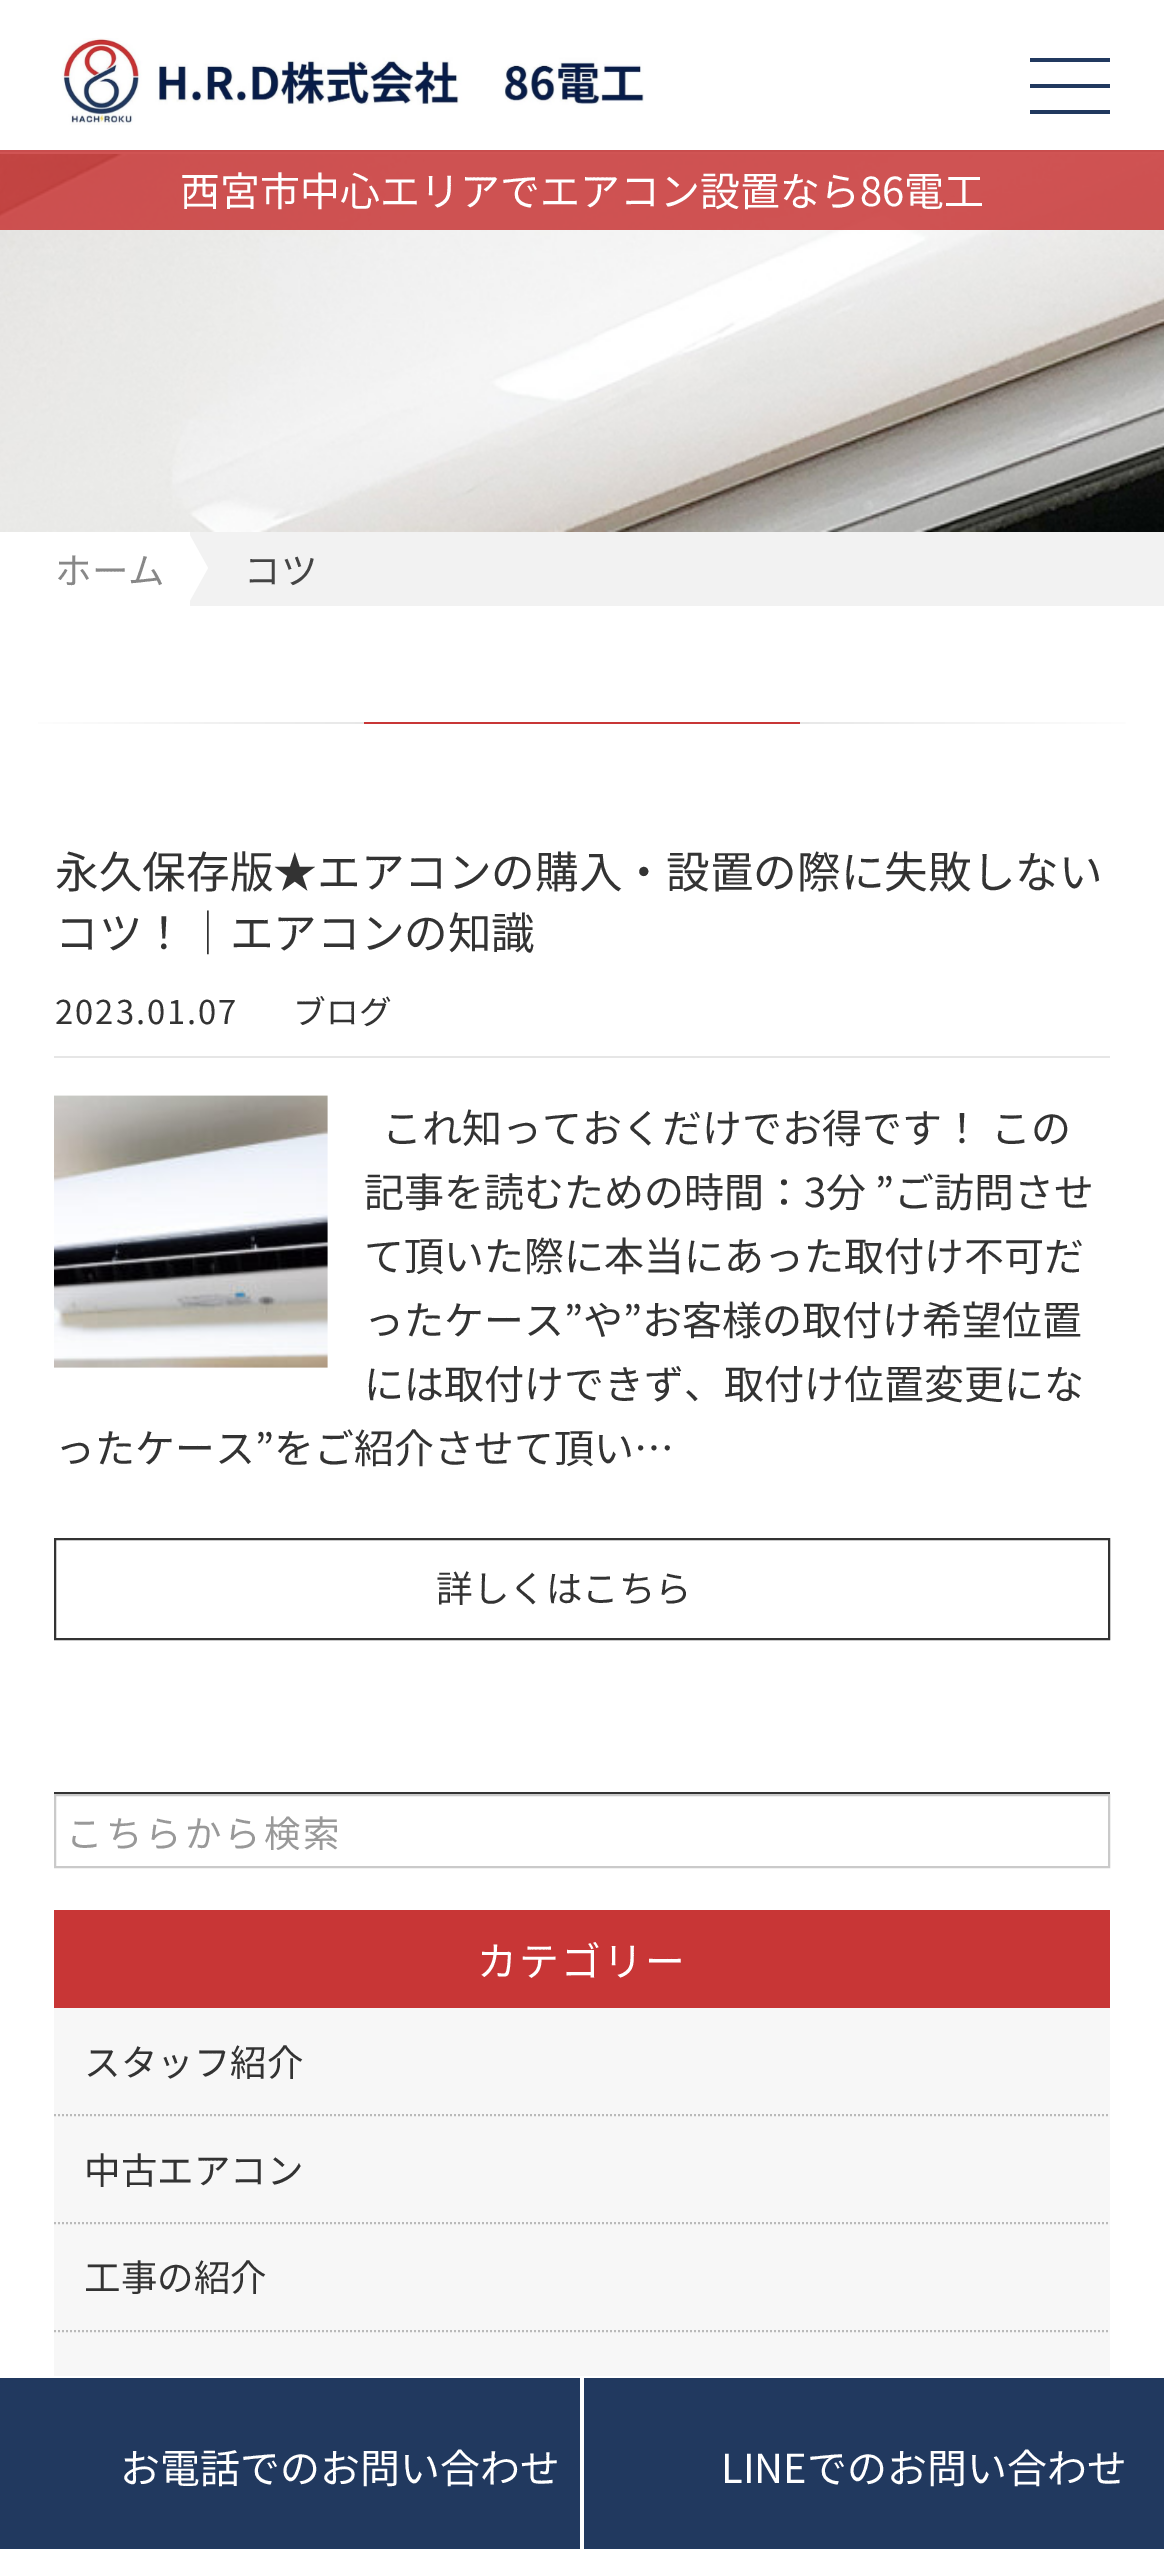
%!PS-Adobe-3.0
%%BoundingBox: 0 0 1164 2549
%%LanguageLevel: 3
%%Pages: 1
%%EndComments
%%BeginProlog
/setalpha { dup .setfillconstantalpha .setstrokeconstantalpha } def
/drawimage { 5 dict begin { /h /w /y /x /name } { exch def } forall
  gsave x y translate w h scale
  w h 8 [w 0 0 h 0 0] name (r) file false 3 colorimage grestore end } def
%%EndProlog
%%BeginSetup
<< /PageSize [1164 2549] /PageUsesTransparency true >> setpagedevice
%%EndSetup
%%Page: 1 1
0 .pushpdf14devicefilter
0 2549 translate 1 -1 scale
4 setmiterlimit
1 setgray
0 0 1164 2549 rectfill
0.808 setgray
0 150 1164 2 rectfill
0.129 0.224 0.373 setrgbcolor
1030 58 80 4 rectfill
1030 84 80 4 rectfill
1030 110 80 4 rectfill
(images/1.raw) 61 38 583 87 drawimage
(images/2.raw) 0 154 1164 378 drawimage
0.85 setalpha
0.784 0.212 0.212 setrgbcolor
0 150 1164 80 rectfill
1 setalpha
0.949 setgray
190 532 974 74 rectfill
1 setgray
newpath 188 604 moveto 188 532 lineto 208 568 lineto closepath fill
gsave newpath 38 722 moveto 1126 722 lineto 1126 724 lineto 38 724 lineto closepath clip newpath
<< /ShadingType 2 /ColorSpace /DeviceRGB /Coords [0 723 1164 723] /Extend [true true] /Function << /FunctionType 3 /Domain [0 1] /Functions [<< /FunctionType 2 /Domain [0 1] /C0 [1 1 1] /C1 [0.851 0.851 0.851] /N 1 >> << /FunctionType 2 /Domain [0 1] /C0 [0.851 0.851 0.851] /C1 [1 1 1] /N 1 >>] /Bounds [0.5] /Encode [0 1 0 1] >> >> shfill grestore
0.784 0.212 0.212 setrgbcolor
364 722 436 2 rectfill
0.902 setgray
54 1056 1056 2 rectfill
(images/3.raw) 54 1095 274 273 drawimage
0.2 setgray
2 setlinewidth
55 1539 1054 100 rectstroke
54 1792 1056 2 rectfill
0.792 setgray
55 1795 1054 72 rectstroke
0.969 setgray
54 2008 1056 368 rectfill
0.784 0.212 0.212 setrgbcolor
54 1910 1056 98 rectfill
0.729 setgray
[2 2] 0 setdash
newpath 54 2115 moveto 1110 2115 lineto stroke
newpath 54 2223 moveto 1110 2223 lineto stroke
newpath 54 2331 moveto 1110 2331 lineto stroke
0.129 0.224 0.373 setrgbcolor
0 2378 580 171 rectfill
584 2378 580 171 rectfill
/NotoSansJP-Regular [40 0 0 -40 0 0] selectfont
1 setgray
180 206 moveto (西宮市中心エリアでエアコン設置なら86電工) show
/NotoSansJP-Regular [36.5 0 0 -36.5 0 0] selectfont
0.533 setgray
55 584 moveto (ホーム) show
0.267 setgray
244 584 moveto (コツ) show
/NotoSansJP-Regular [43.65 0 0 -43.65 0 0] selectfont
0.2 setgray
55 888 moveto (永久保存版★エアコンの購入・設置の際に失敗しない) show
55 949 moveto (コツ！｜エアコンの知識) show
/NotoSansJP-Regular [32.75 0 0 -32.75 0 0] selectfont
55 1024 moveto 2 0 (2023.01.07) ashow
293 1024 moveto (ブログ) show
/NotoSansJP-Regular [40 0 0 -40 0 0] selectfont
382 1143 moveto (これ知っておくだけでお得です！ この) show
364 1207 moveto (記事を読むための時間：3分 ”ご訪問させ) show
364 1271 moveto (て頂いた際に本当にあった取付け不可だ) show
364 1335 moveto (ったケース”や”お客様の取付け希望位置) show
364 1399 moveto (には取付けできず、取付け位置変更にな) show
55 1463 moveto (ったケース”をご紹介させて頂い…) show
/NotoSansJP-Regular [36.5 0 0 -36.5 0 0] selectfont
436 1602 moveto (詳しくはこちら) show
0.6 setgray
66 1847 moveto 3 0 (こちらから検索) ashow
/NotoSansJP-Regular [40 0 0 -40 0 0] selectfont
1 setgray
477 1976 moveto 2 0 (カテゴリー) ashow
/NotoSansJP-Regular [36.5 0 0 -36.5 0 0] selectfont
0.2 setgray
84 2076 moveto (スタッフ紹介) show
84 2184 moveto (中古エアコン) show
84 2291 moveto (工事の紹介) show
/NotoSansJP-Regular [40 0 0 -40 0 0] selectfont
1 setgray
120 2483 moveto (お電話でのお問い合わせ) show
721 2483 moveto (LINEでのお問い合わせ) show
.poppdf14devicefilter showpage
%%EOF
